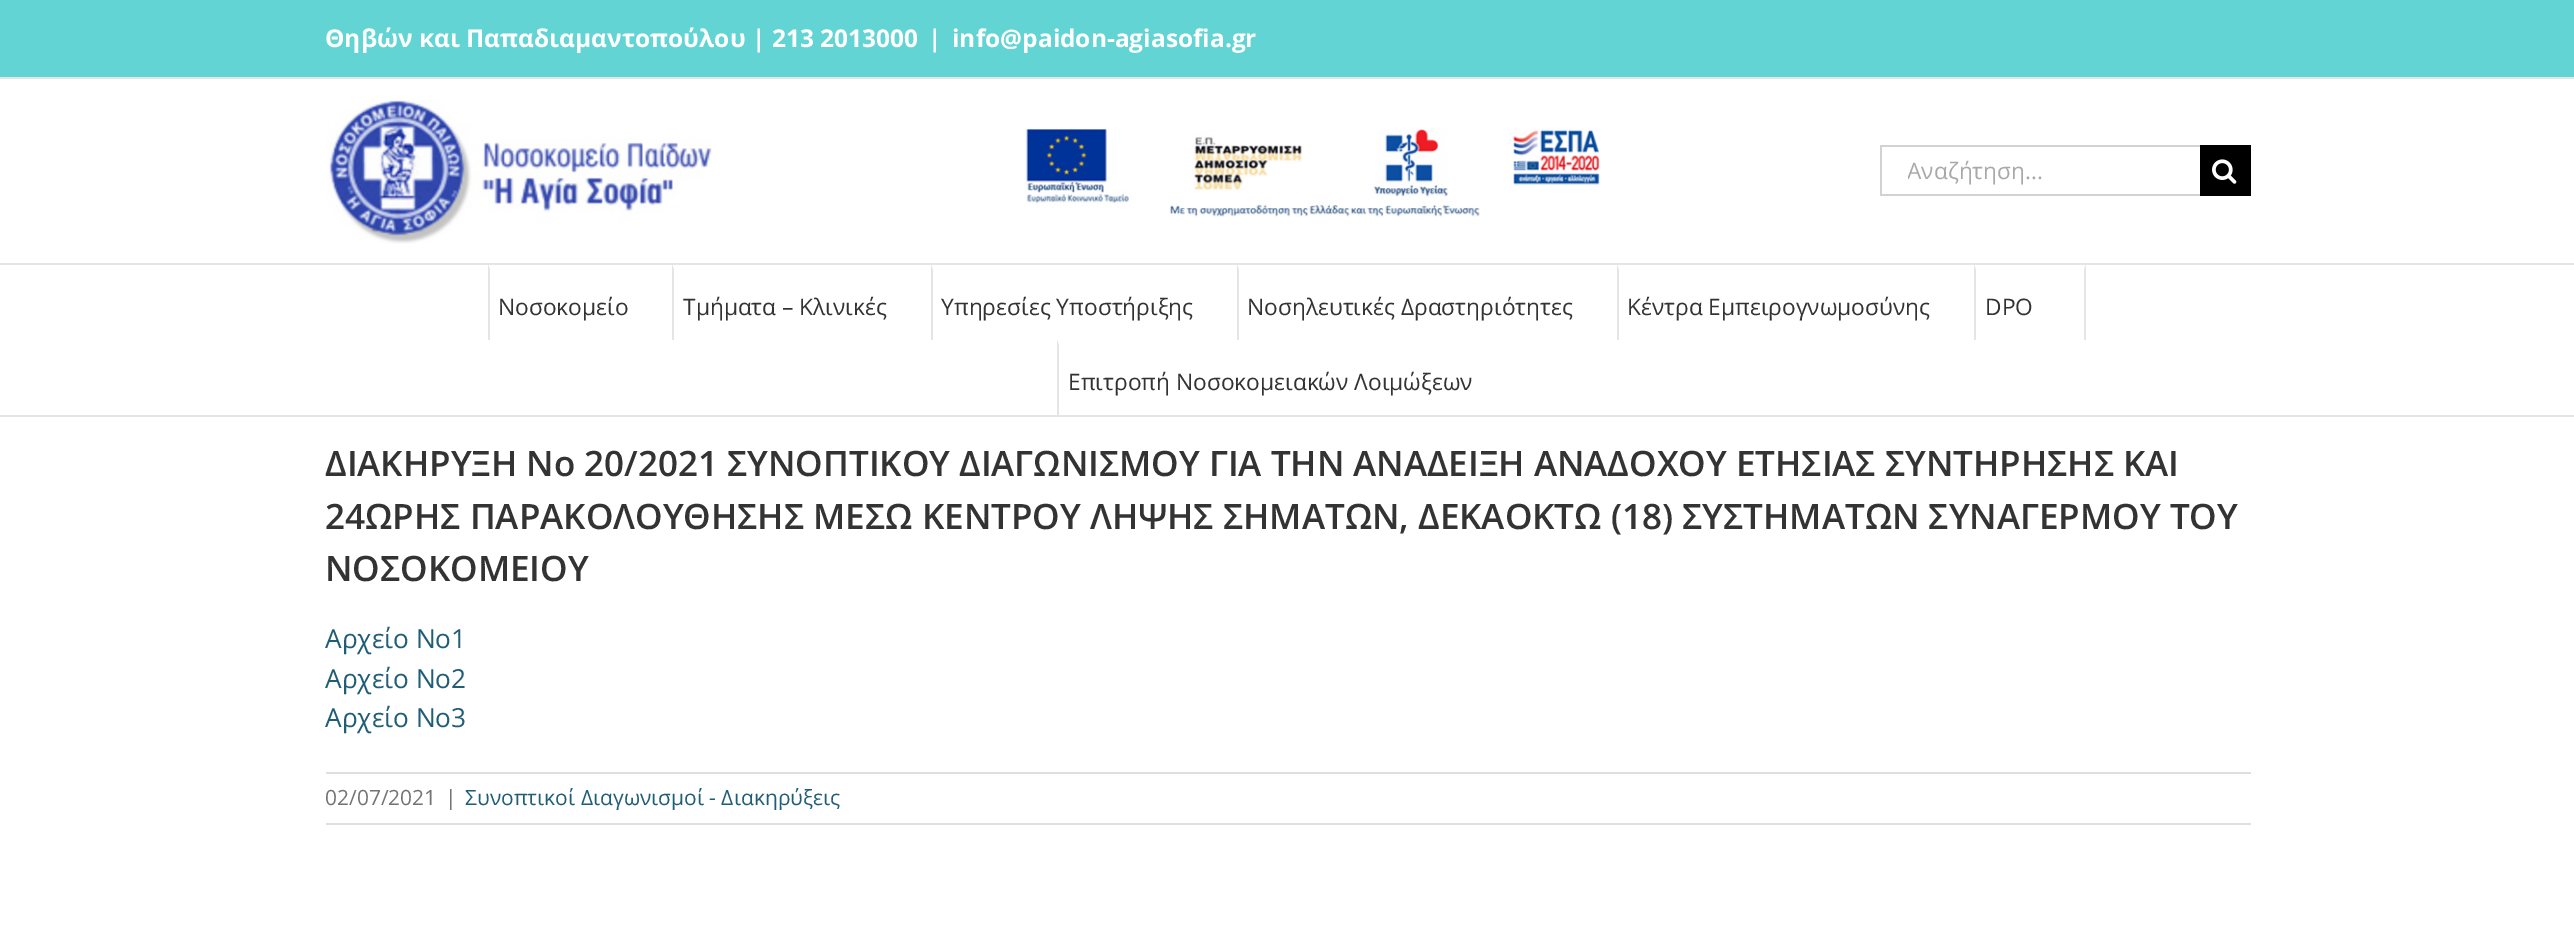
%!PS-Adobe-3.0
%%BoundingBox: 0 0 2574 936
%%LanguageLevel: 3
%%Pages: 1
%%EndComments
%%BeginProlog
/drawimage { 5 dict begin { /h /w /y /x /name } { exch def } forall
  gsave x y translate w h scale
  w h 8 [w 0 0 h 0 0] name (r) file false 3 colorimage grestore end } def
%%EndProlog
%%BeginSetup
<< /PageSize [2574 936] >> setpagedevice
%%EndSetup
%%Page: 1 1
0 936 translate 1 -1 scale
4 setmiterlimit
1 setgray
0 0 2574 936 rectfill
0.384 0.831 0.831 setrgbcolor
0 0 2574 77 rectfill
0.898 setgray
0 77 2574 2 rectfill
0 263 2574 2 rectfill
(images/1.raw) 326 100 386 144 drawimage
(images/2.raw) 1025 129 575 88 drawimage
0.824 setgray
1880 145 320 2 rectfill
1880 194 320 2 rectfill
1880 145 2 51 rectfill
0 setgray
2200 145 51 51 rectfill
(images/3.raw) 2212 159 25 25 drawimage
0.898 setgray
0 415 2574 2 rectfill
newpath 488 340 moveto 488 264 lineto 490 270 lineto 490 340 lineto closepath fill
newpath 672 340 moveto 672 264 lineto 674 270 lineto 674 340 lineto closepath fill
newpath 931 340 moveto 931 264 lineto 933 270 lineto 933 340 lineto closepath fill
newpath 1237 340 moveto 1237 264 lineto 1239 270 lineto 1239 340 lineto closepath fill
newpath 1617 340 moveto 1617 264 lineto 1619 270 lineto 1619 340 lineto closepath fill
newpath 2086 264 moveto 2086 340 lineto 2084 340 lineto 2084 270 lineto closepath fill
newpath 1974 340 moveto 1974 264 lineto 1976 270 lineto 1976 340 lineto closepath fill
newpath 1057 415 moveto 1057 340 lineto 1059 345 lineto 1059 415 lineto closepath fill
0.878 0.871 0.871 setrgbcolor
326 772 1925 2 rectfill
326 823 1925 2 rectfill
/OpenSans-Bold [24.5 0 0 -24.5 0 0] selectfont
1 setgray
325 47 moveto (Θηβών και Παπαδιαμαντοπούλου | 213 2013000) show
928 47 moveto (|) show
952 47 moveto (info@paidon-agiasofia.gr) show
gsave
1908 154 243 32 rectclip
/OpenSans-Regular [22.75 0 0 -22.75 0 0] selectfont
0.667 0.663 0.663 setrgbcolor
1907 179 moveto (Αναζήτηση...) show
grestore
/OpenSans-Regular [22.75 0 0 -22.75 0 0] selectfont
0.2 setgray
498 315 moveto (Νοσοκομείο) show
683 315 moveto (Τμήματα – Κλινικές) show
941 315 moveto (Υπηρεσίες Υποστήριξης) show
1247 315 moveto (Νοσηλευτικές Δραστηριότητες) show
1627 315 moveto (Κέντρα Εμπειρογνωμοσύνης) show
1985 315 moveto (DPO) show
1068 390 moveto (Επιτροπή Νοσοκομειακών Λοιμώξεων) show
/OpenSans-SemiBold [35 0 0 -35 0 0] selectfont
325 476 moveto (ΔΙΑΚΗΡΥΞΗ Νο 20/2021 ΣΥΝΟΠΤΙΚΟΥ ΔΙΑΓΩΝΙΣΜΟΥ ΓΙΑ ΤΗΝ ΑΝΑΔΕΙΞΗ ΑΝΑΔΟΧΟΥ ΕΤΗΣΙΑΣ ΣΥΝΤΗΡΗΣΗΣ ΚΑΙ) show
325 529 moveto (24ΩΡΗΣ ΠΑΡΑΚΟΛΟΥΘΗΣΗΣ ΜΕΣΩ ΚΕΝΤΡΟΥ ΛΗΨΗΣ ΣΗΜΑΤΩΝ, ΔΕΚΑΟΚΤΩ \(18\) ΣΥΣΤΗΜΑΤΩΝ ΣΥΝΑΓΕΡΜΟΥ ΤΟΥ) show
325 581 moveto (ΝΟΣΟΚΟΜΕΙΟΥ) show
/OpenSans-Regular [26.25 0 0 -26.25 0 0] selectfont
0.125 0.365 0.463 setrgbcolor
325 648 moveto (Αρχείο Νο1) show
325 688 moveto (Αρχείο Νο2) show
325 727 moveto (Αρχείο Νο3) show
gsave
326 774 1925 49 rectclip
/OpenSans-Regular [21 0 0 -21 0 0] selectfont
0.455 setgray
325 805 moveto (02/07/2021) show
grestore
/OpenSans-Regular [21 0 0 -21 0 0] selectfont
0.455 setgray
445 805 moveto (|) show
0.125 0.365 0.463 setrgbcolor
465 805 moveto (Συνοπτικοί Διαγωνισμοί - Διακηρύξεις) show
showpage
%%EOF
